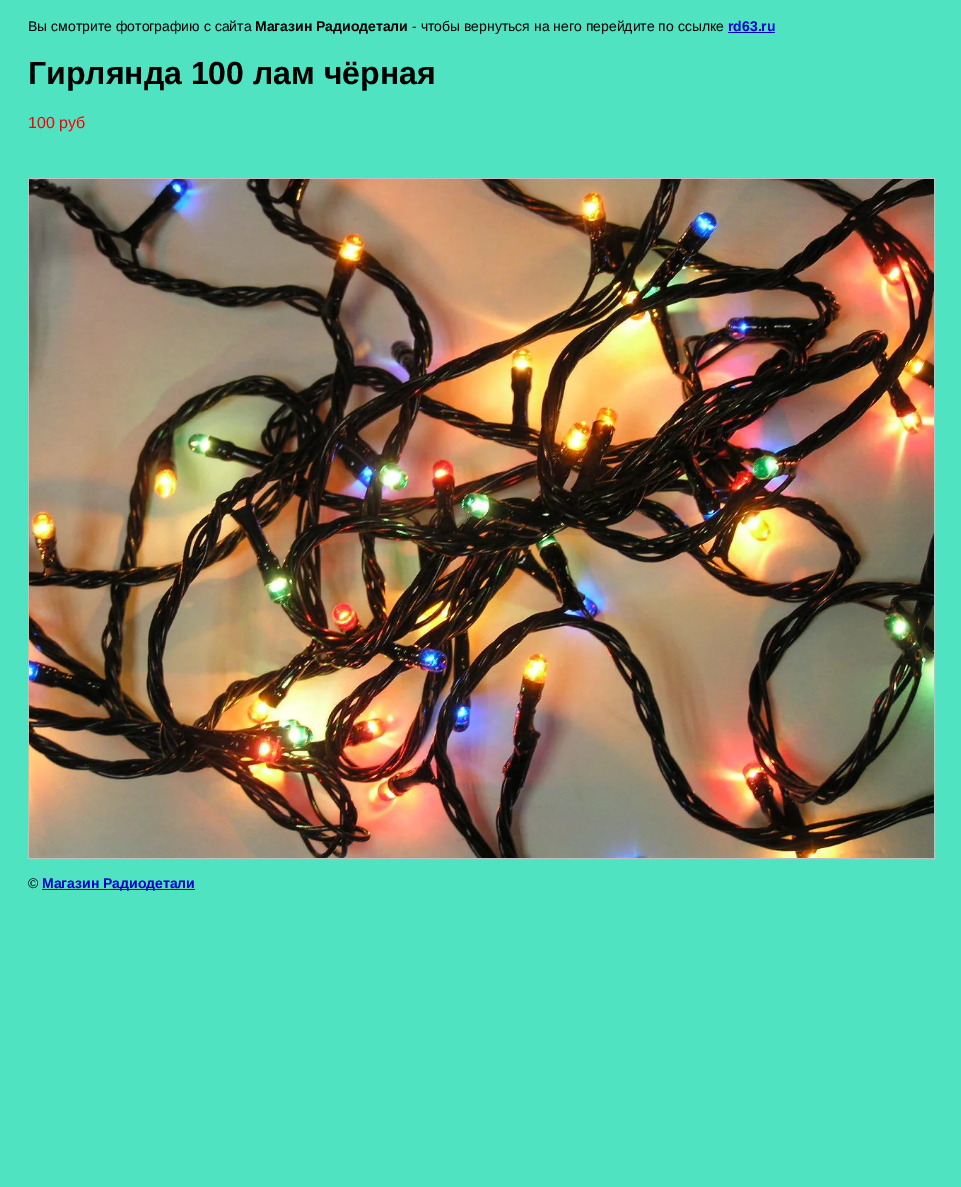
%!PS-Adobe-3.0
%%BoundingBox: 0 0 961 1187
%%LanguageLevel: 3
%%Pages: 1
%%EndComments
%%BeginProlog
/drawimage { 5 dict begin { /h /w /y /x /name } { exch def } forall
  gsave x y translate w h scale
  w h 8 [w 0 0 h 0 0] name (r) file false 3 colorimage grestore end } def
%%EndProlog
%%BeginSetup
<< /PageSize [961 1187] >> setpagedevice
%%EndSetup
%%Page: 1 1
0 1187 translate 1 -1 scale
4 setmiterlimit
0.314 0.89 0.761 setrgbcolor
0 0 961 1187 rectfill
0 0 0.8 setrgbcolor
728 32 47 1 rectfill
0.753 setgray
28.5 178.5 906 680 rectstroke
(images/1.raw) 29 179 905 679 drawimage
0 0 0.8 setrgbcolor
42 889 153 1 rectfill
/LiberationSans-Regular [14 0 0 -14 0 0] selectfont
0 setgray
28 31 moveto (Вы смотрите фотографию с сайта) show
/LiberationSans-Bold [14 0 0 -14 0 0] selectfont
255 31 moveto (Магазин Радиодетали) show
/LiberationSans-Regular [14 0 0 -14 0 0] selectfont
412 31 moveto (- чтобы вернуться на него перейдите по ссылке) show
/LiberationSans-Bold [14 0 0 -14 0 0] selectfont
0 0 0.8 setrgbcolor
728 31 moveto (rd63.ru) show
/LiberationSans-Bold [32 0 0 -32 0 0] selectfont
0 setgray
28 84 moveto (Гирлянда 100 лам чёрная) show
/LiberationSans-Regular [16 0 0 -16 0 0] selectfont
1 0 0 setrgbcolor
28 128 moveto (100 руб) show
/LiberationSans-Regular [14 0 0 -14 0 0] selectfont
0 setgray
28 888 moveto (©) show
/LiberationSans-Bold [14 0 0 -14 0 0] selectfont
0 0 0.8 setrgbcolor
42 888 moveto (Магазин Радиодетали) show
showpage
%%EOF
